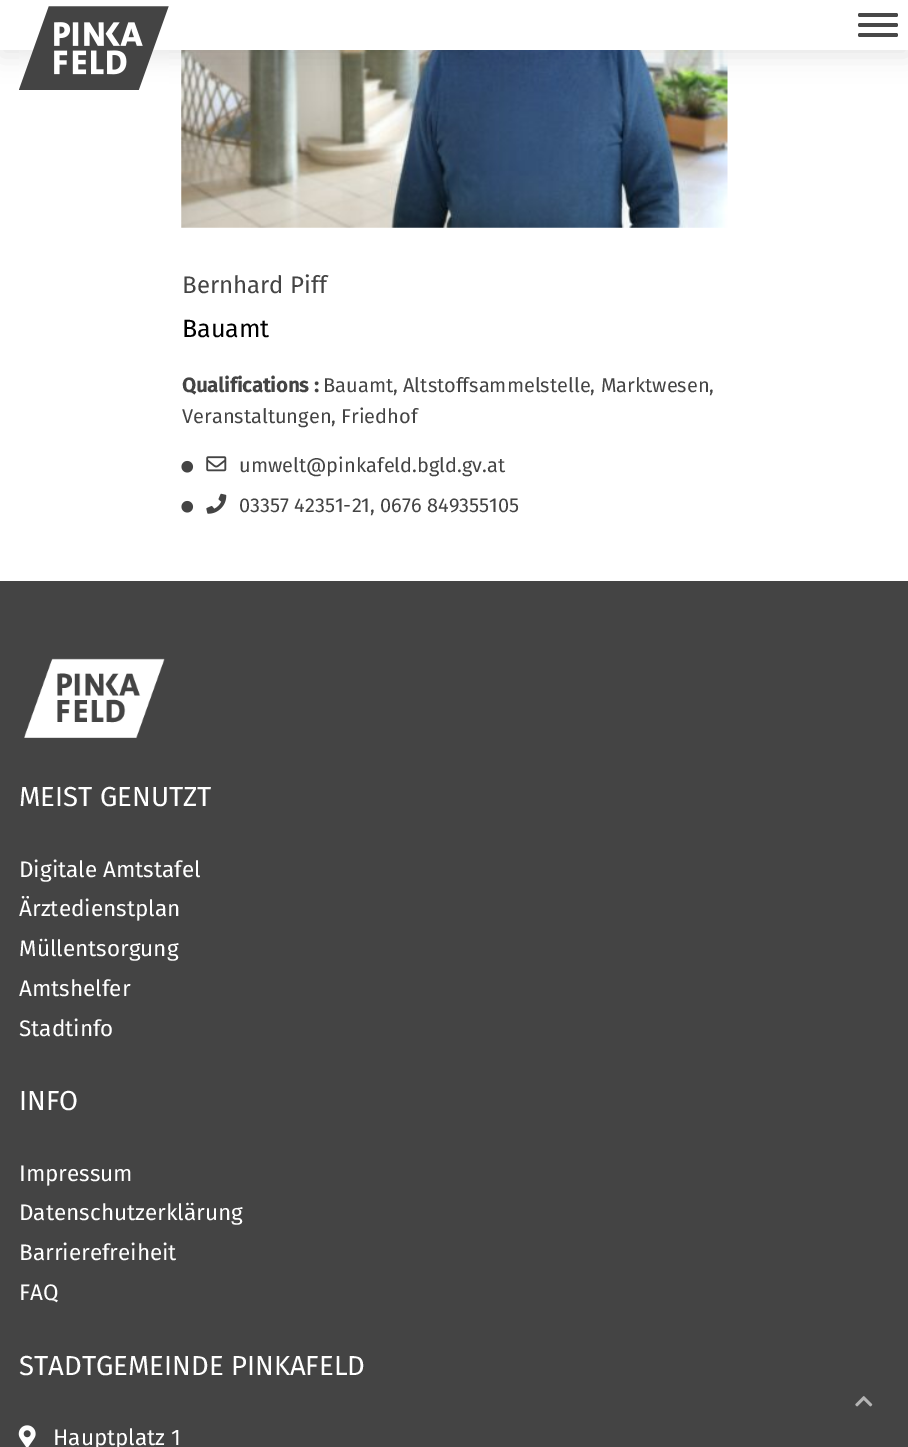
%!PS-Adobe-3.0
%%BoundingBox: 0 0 908 1447
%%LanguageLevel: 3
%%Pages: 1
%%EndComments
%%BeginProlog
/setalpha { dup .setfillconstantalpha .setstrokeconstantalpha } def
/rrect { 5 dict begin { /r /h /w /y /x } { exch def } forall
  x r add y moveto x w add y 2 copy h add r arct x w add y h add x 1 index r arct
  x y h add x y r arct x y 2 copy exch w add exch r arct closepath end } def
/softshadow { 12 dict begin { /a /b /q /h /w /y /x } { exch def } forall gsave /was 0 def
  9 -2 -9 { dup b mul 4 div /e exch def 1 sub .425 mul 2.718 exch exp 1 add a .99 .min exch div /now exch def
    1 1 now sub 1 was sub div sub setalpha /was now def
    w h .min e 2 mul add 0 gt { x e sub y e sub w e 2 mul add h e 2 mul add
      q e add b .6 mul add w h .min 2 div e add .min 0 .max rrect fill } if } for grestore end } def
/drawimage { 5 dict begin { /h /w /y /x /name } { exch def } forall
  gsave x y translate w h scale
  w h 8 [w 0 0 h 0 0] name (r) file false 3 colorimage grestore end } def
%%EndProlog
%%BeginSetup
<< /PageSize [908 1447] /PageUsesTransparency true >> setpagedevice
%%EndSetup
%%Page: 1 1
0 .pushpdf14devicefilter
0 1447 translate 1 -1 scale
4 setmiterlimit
1 setgray
0 0 908 1447 rectfill
(images/2.raw) 181 50 547 178 drawimage
0 setgray
0 6 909 50 0 12.5 0.1 softshadow
1 setgray
0 0 908 50 rectfill
(images/1.raw) 19 6 150 84 drawimage
0.282 setgray
858 13 40 4 2 rrect fill
858 23 40 4 2 rrect fill
858 33 40 4 2 rrect fill
(images/3.raw) 181 460 13 13 drawimage
(images/4.raw) 206 456 21 16 drawimage
(images/3.raw) 181 500 13 13 drawimage
(images/5.raw) 206 493 21 21 drawimage
0.267 setgray
0 581 908 866 rectfill
(images/6.raw) 24 658 141 80 drawimage
(images/7.raw) 18 1425 18 22 drawimage
(images/8.raw) 855 1396 18 11 drawimage
/FiraSans-Regular [24 0 0 -24 0 0] selectfont
182 293 moveto (Bernhard Piff) show
/FiraSans-Regular [25 0 0 -25 0 0] selectfont
0 setgray
182 337 moveto (Bauamt) show
/FiraSans-Bold [20 0 0 -20 0 0] selectfont
0.267 setgray
182 392 moveto (Qualifications :) show
/FiraSans-Regular [20 0 0 -20 0 0] selectfont
323 392 moveto (Bauamt, Altstoffsammelstelle, Marktwesen,) show
182 423 moveto (Veranstaltungen, Friedhof) show
239 472 moveto (umwelt@pinkafeld.bgld.gv.at) show
239 512 moveto (03357 42351-21, 0676 849355105) show
/FiraSans-Regular [27.5 0 0 -27.5 0 0] selectfont
1 setgray
19 806 moveto (MEIST GENUTZT) show
/FiraSans-Regular [22.5 0 0 -22.5 0 0] selectfont
19 877 moveto (Digitale Amtstafel) show
19 916 moveto (Ärztedienstplan) show
19 956 moveto (Müllentsorgung) show
19 996 moveto (Amtshelfer) show
19 1036 moveto (Stadtinfo) show
/FiraSans-Regular [27.5 0 0 -27.5 0 0] selectfont
19 1110 moveto (INFO) show
/FiraSans-Regular [22.5 0 0 -22.5 0 0] selectfont
19 1181 moveto (Impressum) show
19 1220 moveto (Datenschutzerklärung) show
19 1260 moveto (Barrierefreiheit) show
19 1300 moveto (FAQ) show
/FiraSans-Regular [27.5 0 0 -27.5 0 0] selectfont
19 1375 moveto (STADTGEMEINDE PINKAFELD) show
/FiraSans-Regular [22.5 0 0 -22.5 0 0] selectfont
53 1445 moveto (Hauptplatz 1) show
.poppdf14devicefilter showpage
%%EOF
